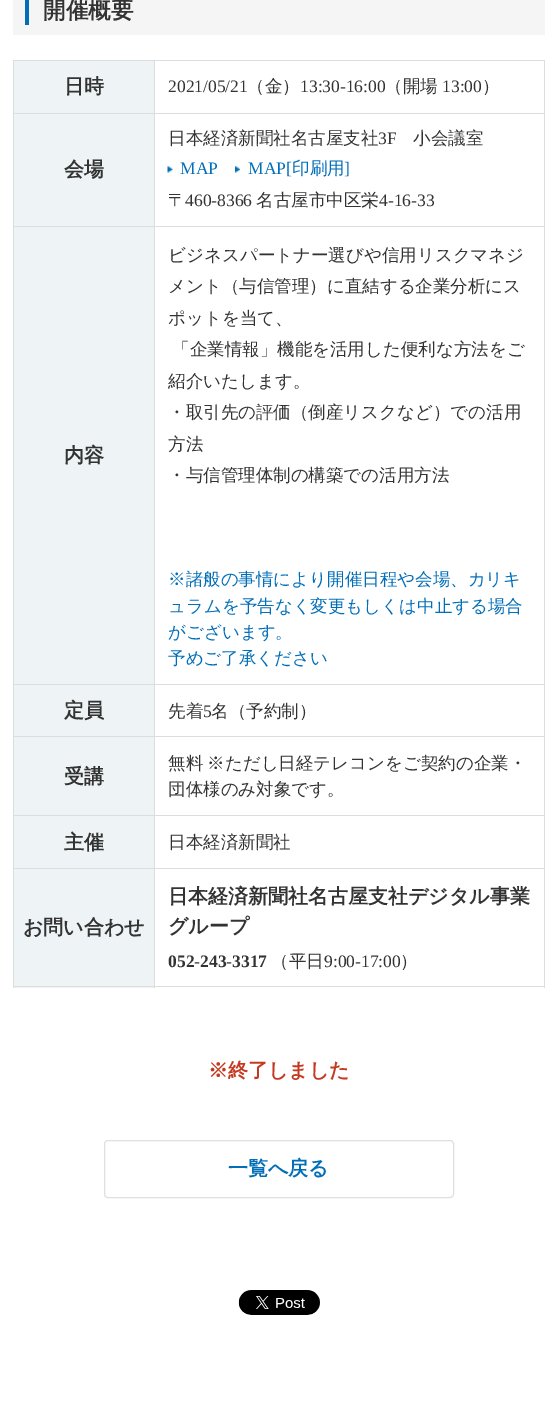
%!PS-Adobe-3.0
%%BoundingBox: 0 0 557 1407
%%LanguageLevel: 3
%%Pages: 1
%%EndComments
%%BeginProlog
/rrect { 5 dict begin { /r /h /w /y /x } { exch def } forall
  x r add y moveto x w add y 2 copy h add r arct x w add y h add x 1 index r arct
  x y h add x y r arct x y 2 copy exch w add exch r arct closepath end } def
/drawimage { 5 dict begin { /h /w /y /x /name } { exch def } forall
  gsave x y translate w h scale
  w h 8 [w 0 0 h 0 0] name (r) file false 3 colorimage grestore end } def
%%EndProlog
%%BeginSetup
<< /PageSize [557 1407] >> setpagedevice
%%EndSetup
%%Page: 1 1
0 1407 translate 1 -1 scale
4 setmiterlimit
1 setgray
0 0 557 1407 rectfill
0.961 setgray
13 0 532 35 rectfill
0.012 0.431 0.722 setrgbcolor
25 0 4 25 rectfill
0.867 setgray
13 60 532 1 rectfill
544 60 1 928 rectfill
0.933 0.953 0.965 setrgbcolor
14 869 140 119 rectfill
0.867 setgray
13 986 532 1 rectfill
13 60 1 928 rectfill
0.933 0.953 0.965 setrgbcolor
14 61 140 52 rectfill
0.867 setgray
154 113 391 1 rectfill
154 226 391 1 rectfill
154 684 391 1 rectfill
0.933 0.953 0.965 setrgbcolor
14 685 140 130 rectfill
0.867 setgray
154 736 391 1 rectfill
154 815 391 1 rectfill
154 868 391 1 rectfill
154 868 1 120 rectfill
13 868 142 1 rectfill
154 815 1 54 rectfill
13 815 142 1 rectfill
154 736 1 80 rectfill
13 736 142 1 rectfill
154 684 1 54 rectfill
13 684 142 1 rectfill
154 226 1 459 rectfill
13 226 142 1 rectfill
154 113 1 115 rectfill
13 113 142 1 rectfill
154 60 1 54 rectfill
0.933 0.953 0.965 setrgbcolor
14 114 140 112 rectfill
(images/1.raw) 167 166 6 7 drawimage
(images/2.raw) 235 166 5 7 drawimage
14 227 140 457 rectfill
14 816 140 52 rectfill
0.878 setgray
104.5 1140.5 349 57 3.5 rrect stroke
(images/3.raw) 238 1290 82 25 drawimage
/WenQuanYiZenHei-Bold [22.5 0 0 -22.5 0 0] selectfont
0.2 setgray
43 18 moveto (開催概要) show
/WenQuanYiZenHei-Bold [20 0 0 -20 0 0] selectfont
64 93 moveto (日時) show
/LiberationSerif-Regular [17.5 0 0 -17.5 0 0] selectfont
168 92 moveto (2021/05/21) show
/WenQuanYiZenHei-Medium [17.5 0 0 -17.5 0 0] selectfont
247 92 moveto (（金）) show
/LiberationSerif-Regular [17.5 0 0 -17.5 0 0] selectfont
300 92 moveto (13:30-16:00) show
/WenQuanYiZenHei-Medium [17.5 0 0 -17.5 0 0] selectfont
385 92 moveto (（開場) show
/LiberationSerif-Regular [17.5 0 0 -17.5 0 0] selectfont
442 92 moveto (13:00) show
/WenQuanYiZenHei-Medium [17.5 0 0 -17.5 0 0] selectfont
482 92 moveto (）) show
/WenQuanYiZenHei-Bold [20 0 0 -20 0 0] selectfont
64 176 moveto (会場) show
/WenQuanYiZenHei-Medium [17.5 0 0 -17.5 0 0] selectfont
168 144 moveto (日本経済新聞社名古屋支社) show
/LiberationSerif-Regular [17.5 0 0 -17.5 0 0] selectfont
378 144 moveto (3F) show
/WenQuanYiZenHei-Medium [17.5 0 0 -17.5 0 0] selectfont
413 144 moveto (小会議室) show
/LiberationSerif-Regular [17.5 0 0 -17.5 0 0] selectfont
0.012 0.431 0.722 setrgbcolor
180 174 moveto (MAP) show
248 174 moveto (MAP[) show
/WenQuanYiZenHei-Medium [17.5 0 0 -17.5 0 0] selectfont
292 174 moveto (印刷用) show
/LiberationSerif-Regular [17.5 0 0 -17.5 0 0] selectfont
344 174 moveto (]) show
/WenQuanYiZenHei-Medium [17.5 0 0 -17.5 0 0] selectfont
0.2 setgray
168 206 moveto (〒) show
/LiberationSerif-Regular [17.5 0 0 -17.5 0 0] selectfont
185 206 moveto (460-8366) show
/WenQuanYiZenHei-Medium [17.5 0 0 -17.5 0 0] selectfont
256 206 moveto (名古屋市中区栄) show
/LiberationSerif-Regular [17.5 0 0 -17.5 0 0] selectfont
379 206 moveto (4-16-33) show
/WenQuanYiZenHei-Bold [20 0 0 -20 0 0] selectfont
64 462 moveto (内容) show
/WenQuanYiZenHei-Medium [17.5 0 0 -17.5 0 0] selectfont
168 261 moveto (ビジネスパートナー選びや信用リスクマネジ) show
168 292 moveto (メント（与信管理）に直結する企業分析にス) show
168 324 moveto (ポットを当て、) show
172 355 moveto (「企業情報」機能を活用した便利な方法をご) show
168 387 moveto (紹介いたします。) show
168 418 moveto (・取引先の評価（倒産リスクなど）での活用) show
168 450 moveto (方法) show
168 481 moveto (・与信管理体制の構築での活用方法) show
0.012 0.431 0.722 setrgbcolor
168 585 moveto (※諸般の事情により開催日程や会場、カリキ) show
168 612 moveto (ュラムを予告なく変更もしくは中止する場合) show
168 638 moveto (がございます。) show
168 664 moveto (予めご了承ください) show
/WenQuanYiZenHei-Bold [20 0 0 -20 0 0] selectfont
0.2 setgray
64 717 moveto (定員) show
/WenQuanYiZenHei-Medium [17.5 0 0 -17.5 0 0] selectfont
168 717 moveto (先着) show
/LiberationSerif-Regular [17.5 0 0 -17.5 0 0] selectfont
203 717 moveto (5) show
/WenQuanYiZenHei-Medium [17.5 0 0 -17.5 0 0] selectfont
211 717 moveto (名（予約制）) show
/WenQuanYiZenHei-Bold [20 0 0 -20 0 0] selectfont
64 783 moveto (受講) show
/WenQuanYiZenHei-Medium [17.5 0 0 -17.5 0 0] selectfont
168 769 moveto -1 0 32 (無料 ※ただし日経テレコンをご契約の企業・) widthshow
168 795 moveto (団体様のみ対象です。) show
/WenQuanYiZenHei-Bold [20 0 0 -20 0 0] selectfont
64 849 moveto (主催) show
/WenQuanYiZenHei-Medium [17.5 0 0 -17.5 0 0] selectfont
168 848 moveto (日本経済新聞社) show
/WenQuanYiZenHei-Bold [20 0 0 -20 0 0] selectfont
23 934 moveto (お問い合わせ) show
168 903 moveto (日本経済新聞社名古屋支社デジタル事業) show
168 933 moveto (グループ) show
/LiberationSerif-Bold [17.5 0 0 -17.5 0 0] selectfont
168 967 moveto (052-243-3317) show
/WenQuanYiZenHei-Medium [17.5 0 0 -17.5 0 0] selectfont
271 967 moveto (（平日) show
/LiberationSerif-Regular [17.5 0 0 -17.5 0 0] selectfont
324 967 moveto (9:00-17:00) show
/WenQuanYiZenHei-Medium [17.5 0 0 -17.5 0 0] selectfont
400 967 moveto (）) show
/WenQuanYiZenHei-Bold [20 0 0 -20 0 0] selectfont
0.776 0.224 0.129 setrgbcolor
208 1077 moveto (※終了しました) show
0.012 0.431 0.722 setrgbcolor
228 1175 moveto (一覧へ戻る) show
showpage
%%EOF
